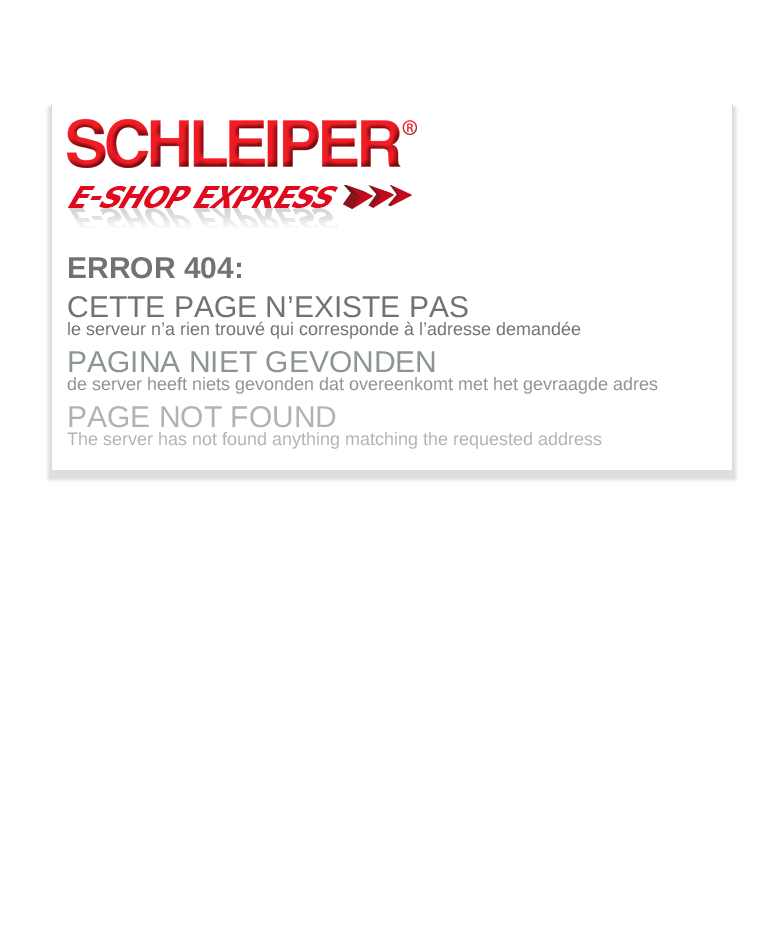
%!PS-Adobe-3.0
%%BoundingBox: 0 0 783 942
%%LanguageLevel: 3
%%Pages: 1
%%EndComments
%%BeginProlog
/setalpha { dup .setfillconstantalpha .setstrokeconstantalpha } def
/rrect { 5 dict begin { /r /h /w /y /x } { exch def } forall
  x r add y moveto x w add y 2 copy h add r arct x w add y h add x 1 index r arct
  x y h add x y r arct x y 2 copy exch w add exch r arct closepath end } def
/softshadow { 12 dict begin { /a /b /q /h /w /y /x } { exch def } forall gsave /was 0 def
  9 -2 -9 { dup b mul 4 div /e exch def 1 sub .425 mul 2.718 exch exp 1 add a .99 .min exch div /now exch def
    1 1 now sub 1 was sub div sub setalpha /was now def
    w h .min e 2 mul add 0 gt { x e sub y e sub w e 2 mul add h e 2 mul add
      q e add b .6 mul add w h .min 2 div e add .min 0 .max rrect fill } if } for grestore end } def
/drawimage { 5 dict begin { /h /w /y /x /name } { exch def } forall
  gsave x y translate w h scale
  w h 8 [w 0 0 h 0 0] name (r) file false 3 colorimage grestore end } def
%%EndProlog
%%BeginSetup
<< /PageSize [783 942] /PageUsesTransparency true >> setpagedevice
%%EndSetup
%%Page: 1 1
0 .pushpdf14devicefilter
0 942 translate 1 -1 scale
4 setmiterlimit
1 setgray
0 0 783 942 rectfill
gsave
newpath 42 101 moveto 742 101 lineto 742 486 lineto 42 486 lineto closepath 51 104 moveto 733 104 lineto 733 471 lineto 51 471 lineto closepath eoclip newpath
0.867 setgray
48 107 688 373 0 1.5 1 softshadow
grestore
0.867 setgray
732 104 1 367 rectfill
51 470 682 1 rectfill
51 104 1 367 rectfill
(images/1.raw) 67 119 350 49 drawimage
(images/2.raw) 67 185 345 43 drawimage
/LiberationSans-Bold [30 0 0 -30 0 0] selectfont
0.447 setgray
67 278 moveto (ERROR 404:) show
/LiberationSans-Regular [30 0 0 -30 0 0] selectfont
67 317 moveto (CETTE PAGE N’EXISTE PAS) show
/LiberationSans-Regular [18 0 0 -18 0 0] selectfont
67 335 moveto (le serveur n’a rien trouvé qui corresponde à l’adresse demandée) show
/LiberationSans-Regular [30 0 0 -30 0 0] selectfont
0.549 0.588 0.561 setrgbcolor
67 372 moveto (PAGINA NIET GEVONDEN) show
/LiberationSans-Regular [18 0 0 -18 0 0] selectfont
67 390 moveto (de server heeft niets gevonden dat overeenkomt met het gevraagde adres) show
/LiberationSans-Regular [30 0 0 -30 0 0] selectfont
0.698 setgray
67 427 moveto (PAGE NOT FOUND) show
/LiberationSans-Regular [18 0 0 -18 0 0] selectfont
67 445 moveto (The server has not found anything matching the requested address) show
.poppdf14devicefilter showpage
%%EOF
